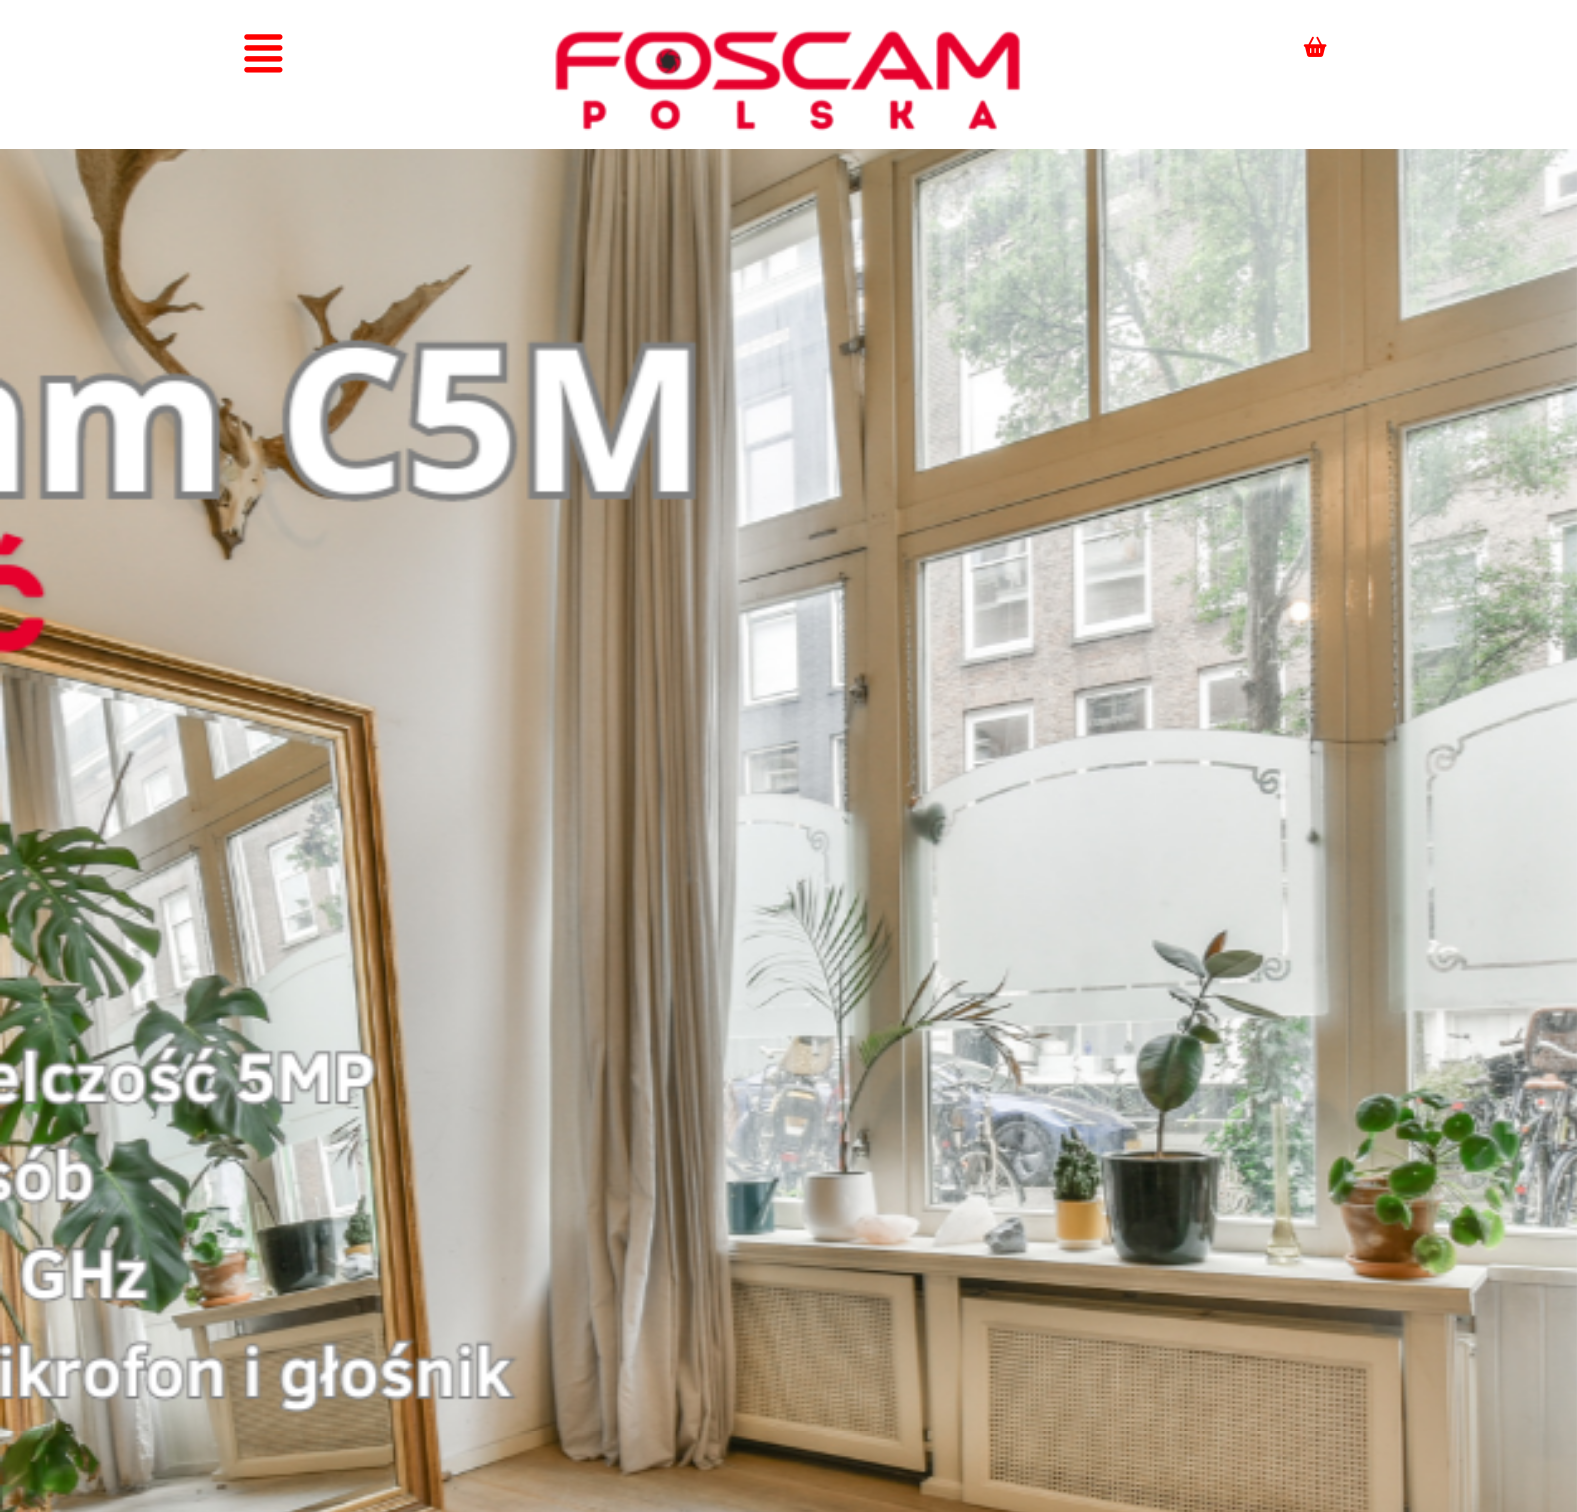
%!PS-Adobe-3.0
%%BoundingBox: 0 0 1577 1512
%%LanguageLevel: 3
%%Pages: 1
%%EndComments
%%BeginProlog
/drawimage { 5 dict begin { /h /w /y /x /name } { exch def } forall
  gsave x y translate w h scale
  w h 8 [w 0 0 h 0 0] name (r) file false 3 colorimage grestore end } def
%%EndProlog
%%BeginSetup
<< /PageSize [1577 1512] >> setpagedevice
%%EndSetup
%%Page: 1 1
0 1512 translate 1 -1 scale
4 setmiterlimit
1 setgray
0 0 1577 1512 rectfill
(images/1.raw) 244 34 39 39 drawimage
(images/2.raw) 555 30 466 101 drawimage
(images/3.raw) 1303 36 24 21 drawimage
(images/4.raw) 0 149 1577 1363 drawimage
showpage
%%EOF
